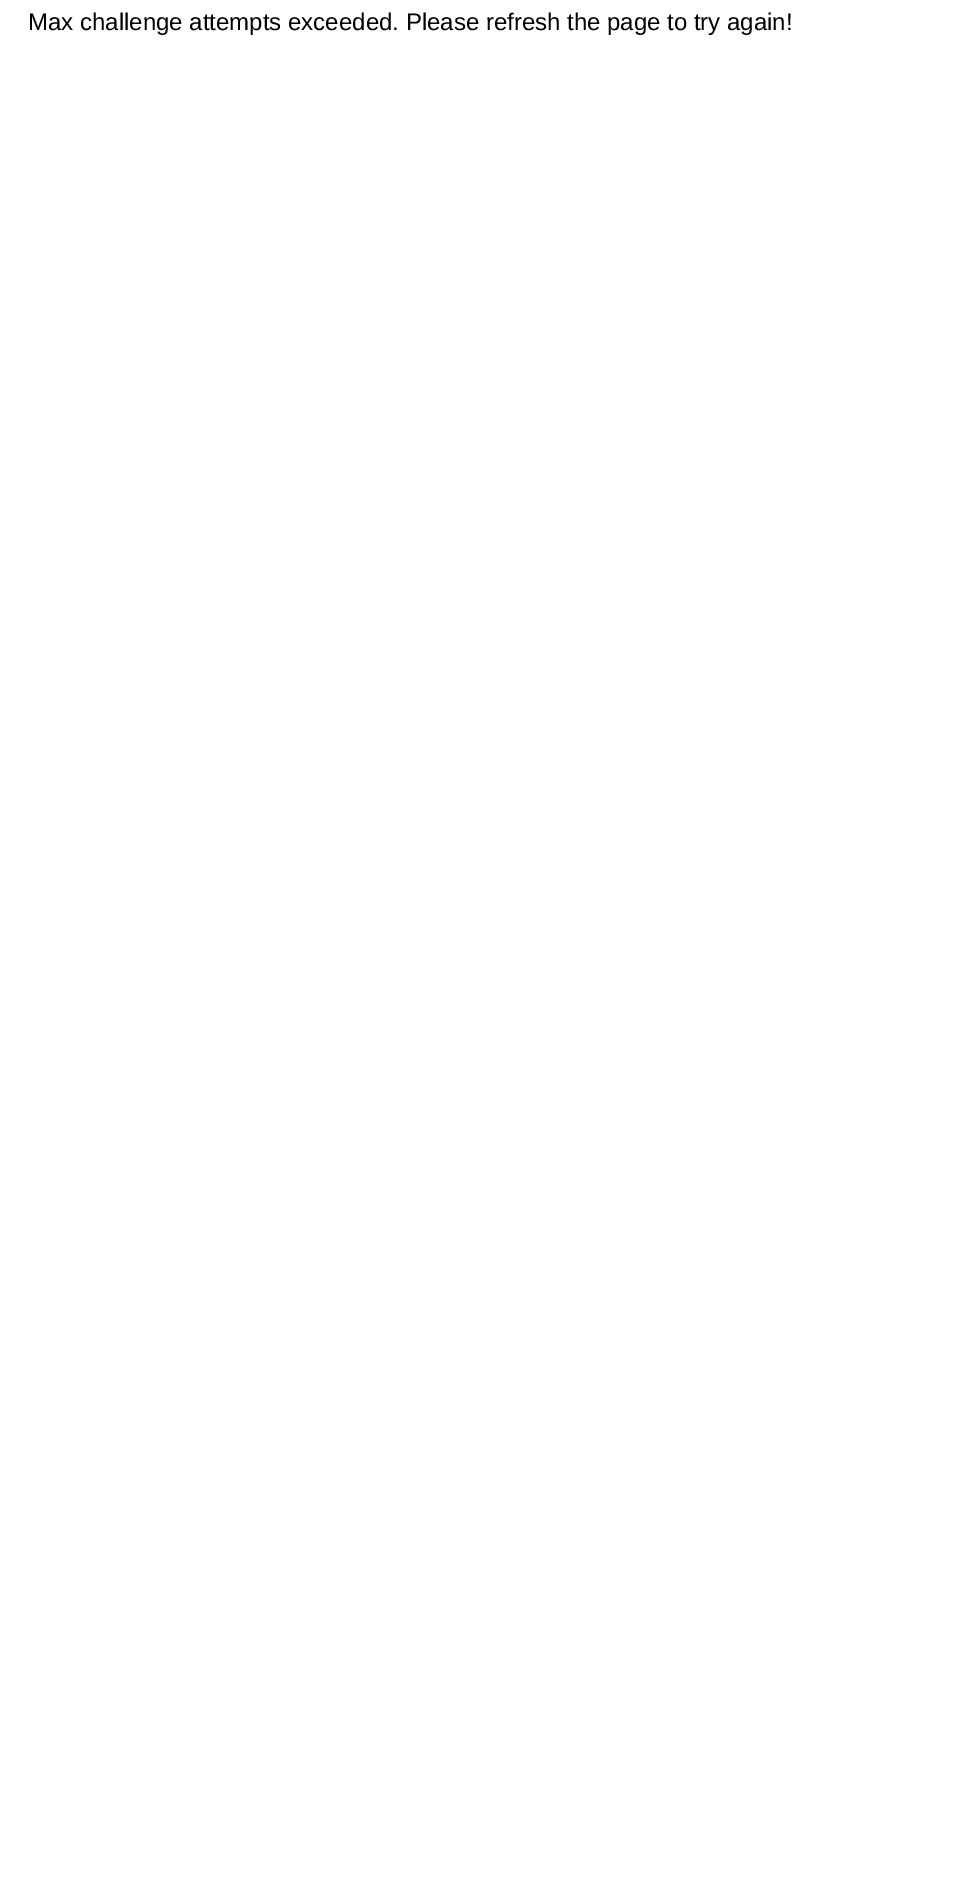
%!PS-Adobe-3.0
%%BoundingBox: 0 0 974 1903
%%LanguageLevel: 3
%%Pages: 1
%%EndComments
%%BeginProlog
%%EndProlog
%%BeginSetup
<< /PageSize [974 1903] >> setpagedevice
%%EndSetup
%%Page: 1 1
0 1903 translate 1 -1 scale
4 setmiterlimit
1 setgray
0 0 974 1903 rectfill
/LiberationSans-Regular [24 0 0 -24 0 0] selectfont
0 setgray
28 30 moveto (Max challenge attempts exceeded. Please refresh the page to try again!) show
showpage
%%EOF
